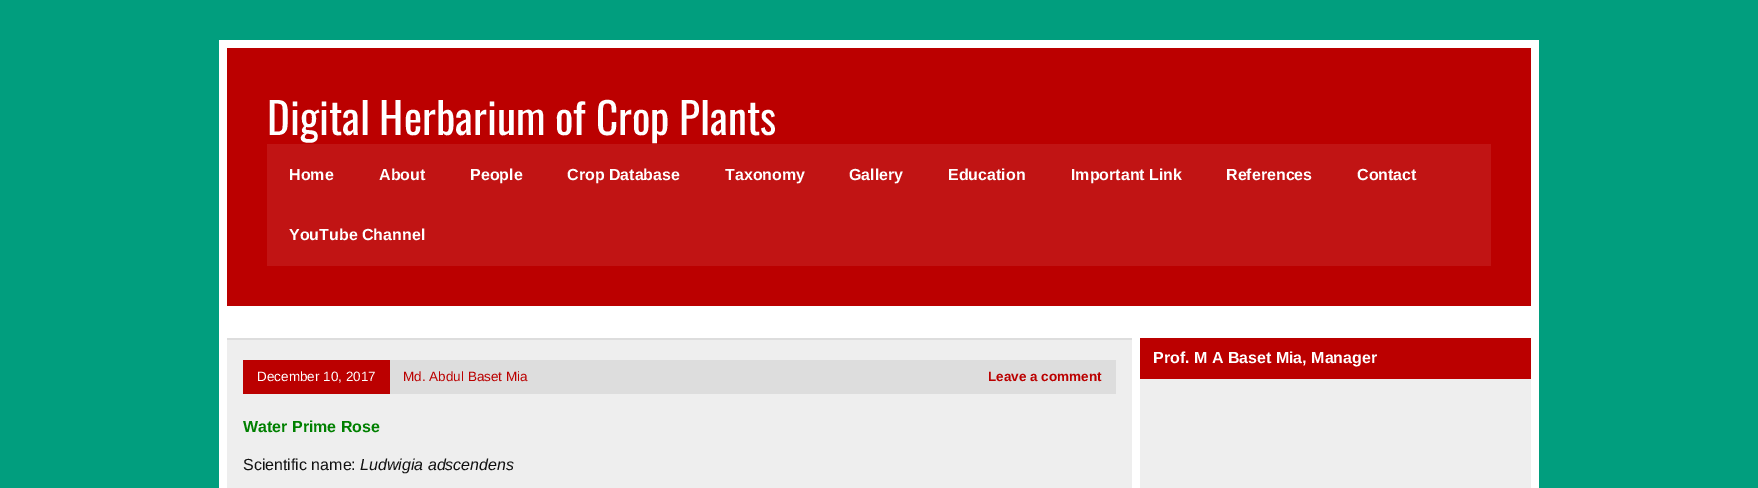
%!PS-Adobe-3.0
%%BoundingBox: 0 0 1758 488
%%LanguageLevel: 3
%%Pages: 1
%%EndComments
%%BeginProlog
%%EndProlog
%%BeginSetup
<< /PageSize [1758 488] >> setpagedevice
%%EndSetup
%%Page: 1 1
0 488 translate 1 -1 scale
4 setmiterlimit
0.004 0.62 0.494 setrgbcolor
0 0 1758 488 rectfill
1 setgray
219 40 1320 448 rectfill
0.733 0 0 setrgbcolor
227 48 1304 258 rectfill
0.757 0.078 0.078 setrgbcolor
267 144 1224 122 rectfill
0.933 setgray
1140 379 391 109 rectfill
0.733 0 0 setrgbcolor
1140 338 391 41 rectfill
0.933 setgray
227 340 905 148 rectfill
0.867 setgray
227 338 905 2 rectfill
390 360 726 34 rectfill
0.733 0 0 setrgbcolor
243 360 147 34 rectfill
/Oswald-Regular [43.25 0 0 -43.25 0 0] selectfont
1 setgray
267 135 moveto (Digital Herbarium of Crop Plants) show
/LiberationSans-Bold [16 0 0 -16 0 0] selectfont
289 180 moveto (Home) show
379 180 moveto (About) show
470 180 moveto (People) show
567 180 moveto (Crop Database) show
725 180 moveto (Taxonomy) show
849 180 moveto (Gallery) show
948 180 moveto (Education) show
1071 180 moveto (Important Link) show
1226 180 moveto (References) show
1357 180 moveto (Contact) show
289 240 moveto (YouTube Channel) show
1153 363 moveto (Prof. M A Baset Mia, Manager) show
/LiberationSans-Regular [13.5 0 0 -13.5 0 0] selectfont
257 381 moveto (December 10, 2017) show
0.733 0 0 setrgbcolor
403 381 moveto (Md. Abdul Baset Mia) show
/LiberationSans-Bold [13.5 0 0 -13.5 0 0] selectfont
988 381 moveto (Leave a comment) show
/LiberationSans-Bold [16 0 0 -16 0 0] selectfont
0 0.502 0 setrgbcolor
243 432 moveto (Water Prime Rose) show
/LiberationSans-Regular [16 0 0 -16 0 0] selectfont
0.067 setgray
243 470 moveto (Scientific name:) show
/LiberationSans-Italic [16 0 0 -16 0 0] selectfont
360 470 moveto (Ludwigia adscendens) show
showpage
%%EOF
